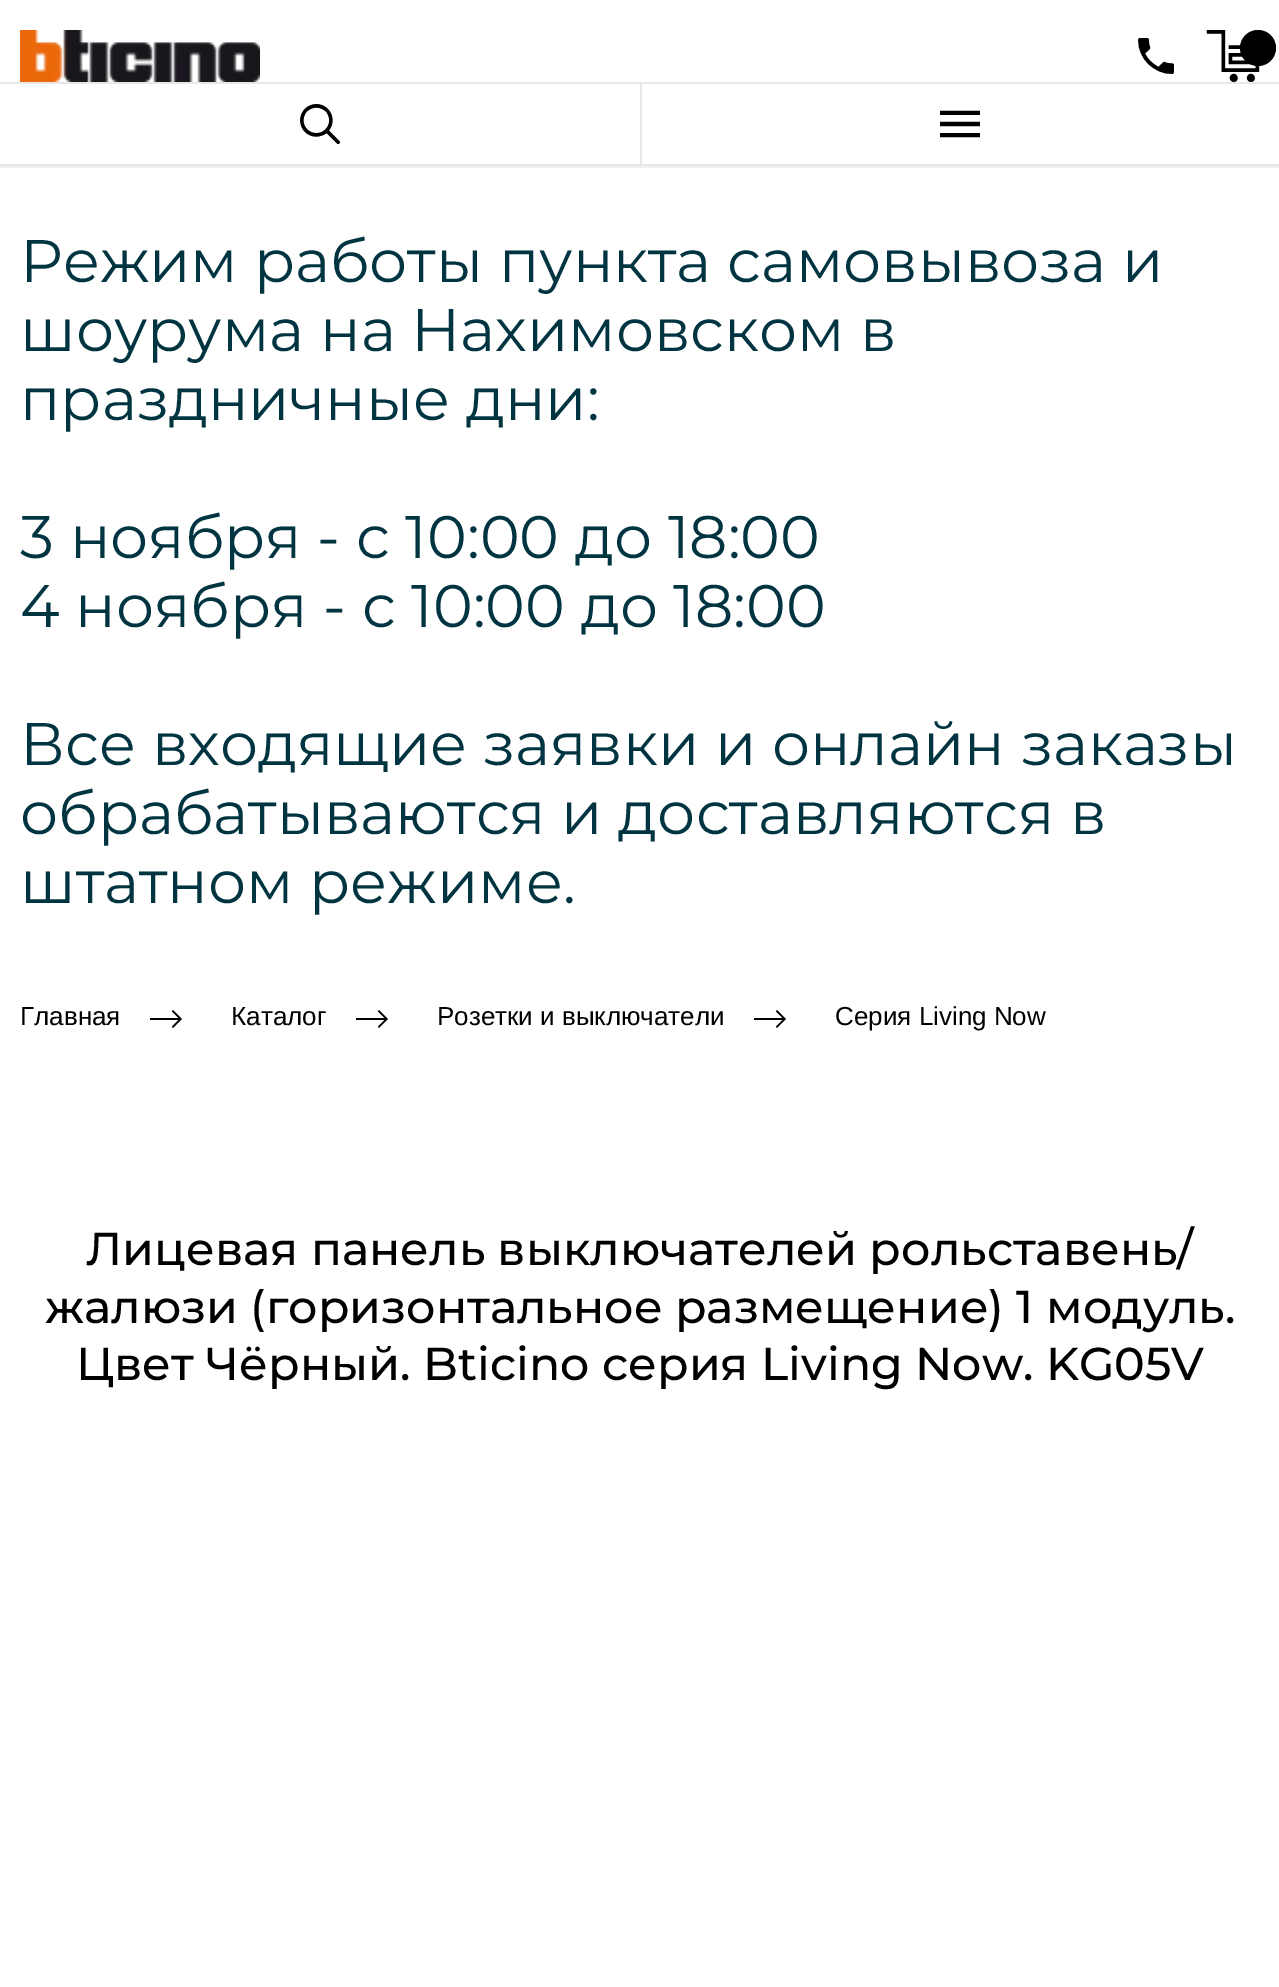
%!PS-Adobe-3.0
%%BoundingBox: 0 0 1279 1987
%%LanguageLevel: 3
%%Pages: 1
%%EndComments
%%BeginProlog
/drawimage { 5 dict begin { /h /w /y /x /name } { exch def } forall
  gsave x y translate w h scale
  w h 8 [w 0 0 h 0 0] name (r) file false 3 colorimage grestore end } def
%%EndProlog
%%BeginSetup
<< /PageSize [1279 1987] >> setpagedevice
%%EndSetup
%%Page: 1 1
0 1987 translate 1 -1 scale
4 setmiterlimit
1 setgray
0 0 1279 1987 rectfill
(images/1.raw) 20 30 240 52 drawimage
(images/2.raw) 1138 38 36 36 drawimage
(images/3.raw) 1206 30 54 52 drawimage
0 setgray
newpath 1258 48 18 0 360 arc closepath fill
0.906 setgray
0 82 1279 84 rectfill
1 setgray
0 84 640 80 rectfill
(images/4.raw) 300 104 40 40 drawimage
642 84 637 80 rectfill
(images/5.raw) 940 110 40 28 drawimage
0.941 setgray
0 166 1279 2 rectfill
0 setgray
newpath 173 1010 moveto 172 1011.5 lineto 178.5 1018 lineto 150 1018 lineto 150 1020 lineto 178.5 1020 lineto 172 1026.5 lineto 173 1028 lineto 182 1019 lineto 173 1010 lineto fill
newpath 379 1010 moveto 378 1011.5 lineto 384.5 1018 lineto 356 1018 lineto 356 1020 lineto 384.5 1020 lineto 378 1026.5 lineto 379 1028 lineto 388 1019 lineto 379 1010 lineto fill
newpath 777 1010 moveto 776 1011.5 lineto 782.5 1018 lineto 754 1018 lineto 754 1020 lineto 782.5 1020 lineto 776 1026.5 lineto 777 1028 lineto 786 1019 lineto 777 1010 lineto fill
/Montserrat-Regular [60 0 0 -60 0 0] selectfont
0 0.204 0.255 setrgbcolor
20 282 moveto (Режим работы пункта самовывоза и) show
20 351 moveto (шоурума на Нахимовском в) show
20 420 moveto (праздничные дни:) show
20 558 moveto (3 ноября - с 10:00 до 18:00) show
20 627 moveto (4 ноября - с 10:00 до 18:00) show
20 765 moveto (Все входящие заявки и онлайн заказы) show
20 834 moveto (обрабатываются и доставляются в) show
20 903 moveto (штатном режиме.) show
/LiberationSans-Regular [26 0 0 -26 0 0] selectfont
0 setgray
20 1025 moveto (Главная) show
231 1025 moveto (Каталог) show
437 1025 moveto (Розетки и выключатели) show
835 1025 moveto (Серия Living Now) show
/Montserrat-Medium [46 0 0 -46 0 0] selectfont
86 1265 moveto (Лицевая панель выключателей рольставень/) show
45 1323 moveto (жалюзи \(горизонтальное размещение\) 1 модуль.) show
76 1380 moveto (Цвет Чёрный. Bticino серия Living Now. KG05V) show
showpage
%%EOF
